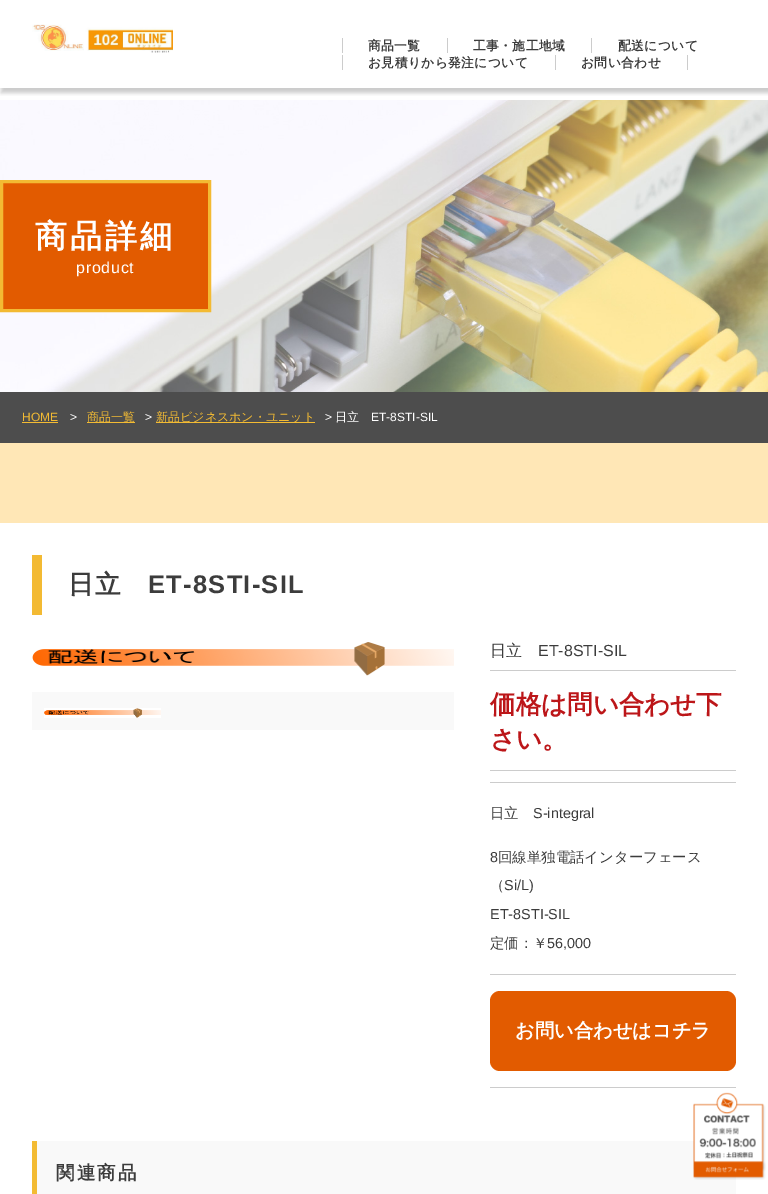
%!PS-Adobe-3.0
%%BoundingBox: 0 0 768 1194
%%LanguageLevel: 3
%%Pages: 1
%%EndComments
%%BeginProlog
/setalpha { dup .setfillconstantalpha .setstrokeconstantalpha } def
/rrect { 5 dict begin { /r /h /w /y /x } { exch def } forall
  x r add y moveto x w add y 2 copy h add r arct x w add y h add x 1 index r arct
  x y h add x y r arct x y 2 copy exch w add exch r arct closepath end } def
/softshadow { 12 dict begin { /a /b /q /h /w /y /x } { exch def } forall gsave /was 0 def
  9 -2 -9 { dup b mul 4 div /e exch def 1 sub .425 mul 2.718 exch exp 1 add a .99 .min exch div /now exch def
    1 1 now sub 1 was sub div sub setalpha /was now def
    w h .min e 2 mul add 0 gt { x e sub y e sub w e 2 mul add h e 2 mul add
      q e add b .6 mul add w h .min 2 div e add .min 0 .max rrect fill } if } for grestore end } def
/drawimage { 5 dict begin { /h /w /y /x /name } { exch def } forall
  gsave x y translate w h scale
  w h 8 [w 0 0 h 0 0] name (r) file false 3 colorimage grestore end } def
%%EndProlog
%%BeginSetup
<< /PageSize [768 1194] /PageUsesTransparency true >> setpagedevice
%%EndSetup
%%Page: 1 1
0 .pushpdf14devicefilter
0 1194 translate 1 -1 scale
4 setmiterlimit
1 setgray
0 0 768 1194 rectfill
gsave
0 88 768 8 rectclip
0 setgray
1 1 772 92 0 2 0.2 softshadow
grestore
(images/1.raw) 32 24 141 29 drawimage
0.8 setgray
342 38 1 15 rectfill
447 38 1 15 rectfill
591 38 1 15 rectfill
342 55 1 15 rectfill
687 55 1 15 rectfill
555 55 1 15 rectfill
(images/2.raw) 0 100 768 292 drawimage
0.886 0.357 0 setrgbcolor
newpath 1.5 181.5 moveto 209.5 181.5 lineto 209.5 310.5 lineto 1.5 310.5 lineto closepath gsave fill grestore
0.953 0.729 0.2 setrgbcolor
3 setlinewidth
stroke
0.302 setgray
0 392 768 51 rectfill
0.953 0.733 0.2 setrgbcolor
22 422 36 1 rectfill
87 422 48 1 rectfill
156 422 159 1 rectfill
1 0.906 0.714 setrgbcolor
0 443 768 80 rectfill
0.953 0.729 0.2 setrgbcolor
32 555 10 60 rectfill
(images/3.raw) 32 642 422 34 drawimage
0.976 setgray
32 692 422 38 rectfill
(images/4.raw) 44 708 117 10 drawimage
0.8 setgray
490 670 246 1 rectfill
490 770 246 1 rectfill
490 782 246 1 rectfill
490 974 246 1 rectfill
490 1087 246 1 rectfill
0.886 0.357 0 setrgbcolor
490 991 246 80 10 rrect fill
0.976 setgray
37 1141 699 53 rectfill
0.953 0.733 0.2 setrgbcolor
32 1141 5 53 rectfill
(images/5.raw) 693 1092 73 88 drawimage
/WenQuanYiZenHei-Bold [12.75 0 0 -12.75 0 0] selectfont
0.235 setgray
368 50 moveto 0.4 0 (商品一覧) ashow
473 50 moveto 0.4 0 (工事・施工地域) ashow
618 50 moveto 0.4 0 (配送について) ashow
368 67 moveto 0.4 0 (お見積りから発注について) ashow
581 67 moveto 0.4 0 (お問い合わせ) ashow
/WenQuanYiZenHei-Bold [32 0 0 -32 0 0] selectfont
1 setgray
35 247 moveto 3 0 (商品詳細) ashow
/LiberationSans-Regular [16 0 0 -16 0 0] selectfont
76 273 moveto 0.75 0 (product) ashow
/LiberationSans-Regular [12 0 0 -12 0 0] selectfont
0.953 0.733 0.2 setrgbcolor
22 421 moveto (HOME) show
1 setgray
70 421 moveto (>) show
/WenQuanYiZenHei-Medium [12 0 0 -12 0 0] selectfont
0.953 0.733 0.2 setrgbcolor
87 421 moveto (商品一覧) show
/LiberationSans-Regular [12 0 0 -12 0 0] selectfont
1 setgray
145 421 moveto (>) show
/WenQuanYiZenHei-Medium [12 0 0 -12 0 0] selectfont
0.953 0.733 0.2 setrgbcolor
156 421 moveto (新品ビジネスホン・ユニット) show
/LiberationSans-Regular [12 0 0 -12 0 0] selectfont
1 setgray
325 421 moveto (>) show
/WenQuanYiZenHei-Medium [12 0 0 -12 0 0] selectfont
335 421 moveto (日立) show
/LiberationSans-Regular [12 0 0 -12 0 0] selectfont
371 421 moveto (ET-8STI-SIL) show
/WenQuanYiZenHei-Bold [25.5 0 0 -25.5 0 0] selectfont
0.235 setgray
68 593 moveto 1.25 0 (日立) ashow
/LiberationSans-Bold [25.5 0 0 -25.5 0 0] selectfont
148 593 moveto 1.25 0 (ET-8STI-SIL) ashow
/WenQuanYiZenHei-Medium [16 0 0 -16 0 0] selectfont
490 656 moveto (日立) show
/LiberationSans-Regular [16 0 0 -16 0 0] selectfont
538 656 moveto (ET-8STI-SIL) show
/WenQuanYiZenHei-Bold [25.5 0 0 -25.5 0 0] selectfont
0.737 0.086 0.098 setrgbcolor
490 713 moveto (価格は問い合わせ下) show
490 748 moveto (さい。) show
/WenQuanYiZenHei-Medium [14.4 0 0 -14.4 0 0] selectfont
0.235 setgray
490 818 moveto (日立) show
/LiberationSans-Regular [14.4 0 0 -14.4 0 0] selectfont
533 818 moveto (S-integral) show
490 862 moveto (8) show
/WenQuanYiZenHei-Medium [14.4 0 0 -14.4 0 0] selectfont
498 862 moveto (回線単独電話インターフェース) show
490 890 moveto (（) show
/LiberationSans-Regular [14.4 0 0 -14.4 0 0] selectfont
504 890 moveto (Si/L\)) show
490 919 moveto (ET-8STI-SIL) show
/WenQuanYiZenHei-Medium [14.4 0 0 -14.4 0 0] selectfont
490 948 moveto (定価：￥) show
/LiberationSans-Regular [14.4 0 0 -14.4 0 0] selectfont
547 948 moveto (56,000) show
/WenQuanYiZenHei-Bold [19.25 0 0 -19.25 0 0] selectfont
1 setgray
515 1037 moveto (お問い合わせはコチラ) show
/WenQuanYiZenHei-Bold [18.5 0 0 -18.5 0 0] selectfont
0.235 setgray
56 1179 moveto 2 0 (関連商品) ashow
.poppdf14devicefilter showpage
%%EOF
